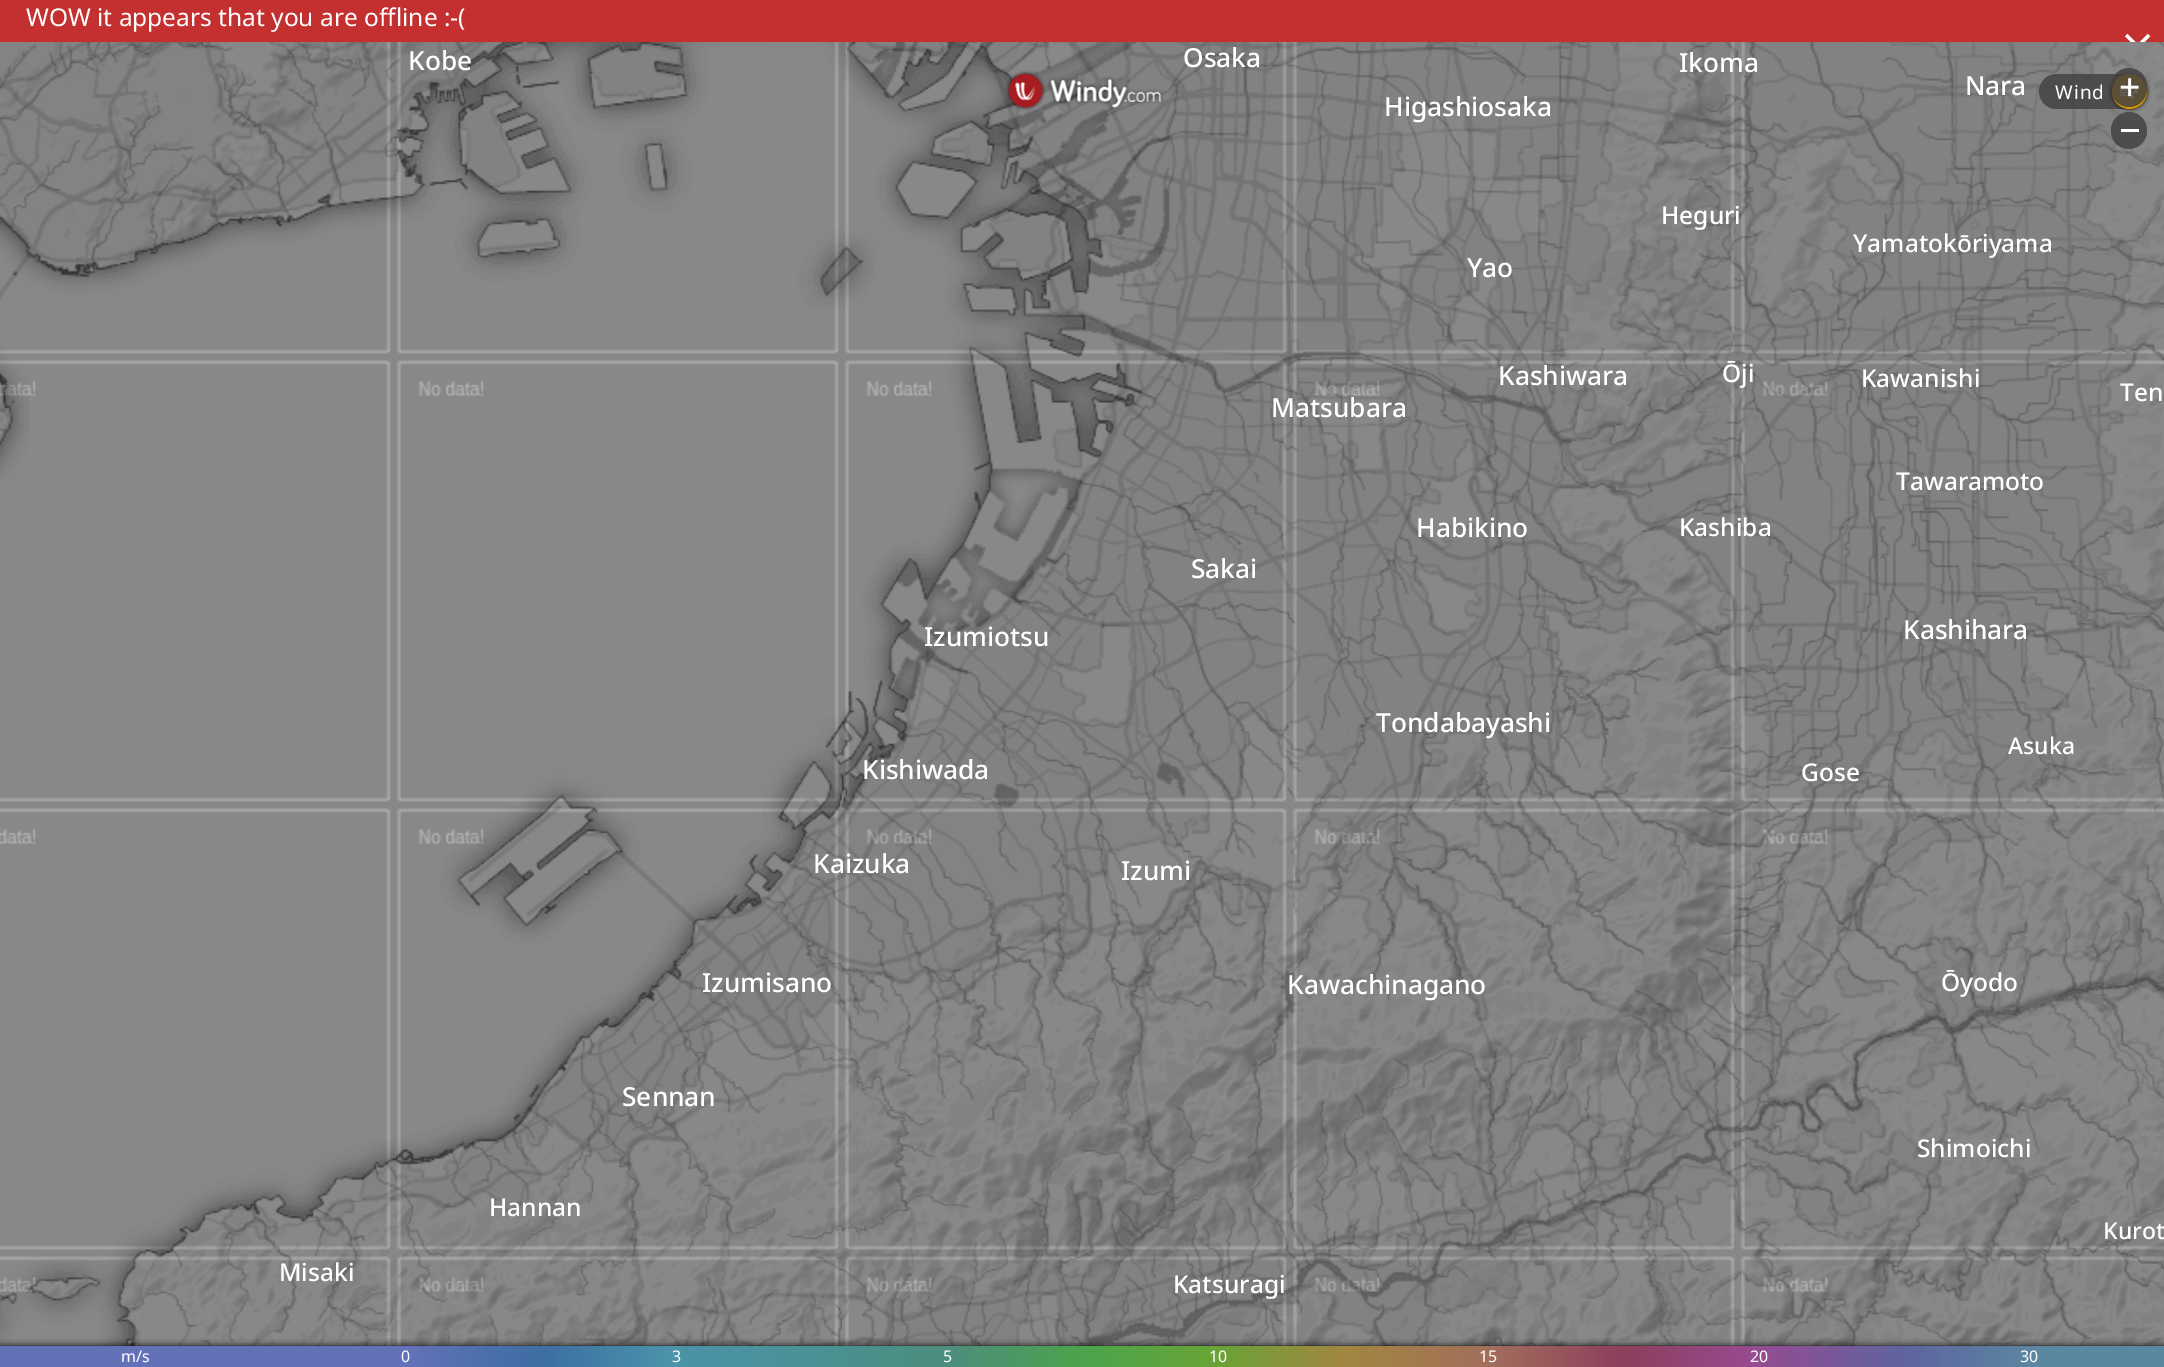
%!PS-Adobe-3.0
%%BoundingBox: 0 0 2164 1367
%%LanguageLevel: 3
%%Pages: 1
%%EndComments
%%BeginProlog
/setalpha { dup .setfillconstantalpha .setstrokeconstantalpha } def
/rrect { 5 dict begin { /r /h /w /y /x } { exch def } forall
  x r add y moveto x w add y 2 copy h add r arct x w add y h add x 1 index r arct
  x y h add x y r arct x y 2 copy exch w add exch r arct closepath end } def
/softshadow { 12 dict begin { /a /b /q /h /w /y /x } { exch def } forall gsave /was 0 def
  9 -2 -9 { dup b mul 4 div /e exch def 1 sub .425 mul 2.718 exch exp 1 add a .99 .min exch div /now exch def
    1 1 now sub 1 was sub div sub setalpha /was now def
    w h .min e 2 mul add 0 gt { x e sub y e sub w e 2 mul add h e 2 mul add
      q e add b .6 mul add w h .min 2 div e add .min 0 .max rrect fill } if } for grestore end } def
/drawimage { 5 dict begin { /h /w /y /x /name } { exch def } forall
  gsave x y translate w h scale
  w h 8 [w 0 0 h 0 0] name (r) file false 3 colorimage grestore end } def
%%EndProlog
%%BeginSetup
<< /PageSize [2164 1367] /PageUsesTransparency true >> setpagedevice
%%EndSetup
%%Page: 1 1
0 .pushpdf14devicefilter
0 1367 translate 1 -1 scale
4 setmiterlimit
1 setgray
0 0 2164 1367 rectfill
0.769 0.184 0.184 setrgbcolor
0 0 2164 42 rectfill
(images/1.raw) 2125 33 26 9 drawimage
(images/2.raw) 0 42 394 315 drawimage
(images/3.raw) 394 42 448 315 drawimage
(images/4.raw) 842 42 448 315 drawimage
(images/4.raw) 1290 42 448 315 drawimage
(images/5.raw) 1738 42 426 315 drawimage
(images/6.raw) 0 357 394 448 drawimage
(images/7.raw) 394 357 448 448 drawimage
(images/8.raw) 842 357 448 448 drawimage
(images/8.raw) 1290 357 448 448 drawimage
(images/9.raw) 1738 357 426 448 drawimage
(images/6.raw) 0 805 394 448 drawimage
(images/7.raw) 394 805 448 448 drawimage
(images/8.raw) 842 805 448 448 drawimage
(images/8.raw) 1290 805 448 448 drawimage
(images/9.raw) 1738 805 426 448 drawimage
(images/10.raw) 0 1253 394 93 drawimage
(images/11.raw) 394 1253 448 93 drawimage
(images/12.raw) 842 1253 448 93 drawimage
(images/12.raw) 1290 1253 448 93 drawimage
(images/13.raw) 1738 1253 426 93 drawimage
(images/14.raw) 0 42 394 315 drawimage
(images/15.raw) 394 42 448 266 drawimage
(images/16.raw) 842 42 448 315 drawimage
(images/17.raw) 1290 42 448 315 drawimage
(images/18.raw) 1738 42 426 315 drawimage
(images/19.raw) 0 357 30 124 drawimage
(images/21.raw) 841 357 449 448 drawimage
(images/20.raw) 521 716 321 89 drawimage
(images/22.raw) 1289 357 449 448 drawimage
(images/23.raw) 1738 357 426 448 drawimage
(images/26.raw) 841 805 449 448 drawimage
(images/25.raw) 393 805 449 448 drawimage
(images/24.raw) 114 1140 280 113 drawimage
(images/27.raw) 1289 805 449 448 drawimage
(images/28.raw) 1738 805 426 448 drawimage
(images/29.raw) 0 1253 394 93 drawimage
(images/30.raw) 394 1253 448 93 drawimage
(images/31.raw) 842 1253 448 93 drawimage
(images/32.raw) 1290 1253 448 93 drawimage
(images/33.raw) 1738 1253 426 93 drawimage
(images/34.raw) 1005 70 41 41 drawimage
(images/35.raw) 1048 76 116 34 drawimage
0.84 setalpha
0.267 0.255 0.255 setrgbcolor
2039 74 108 35 17.5 rrect fill
1 setalpha
0 setgray
2112 74 35 35 17.5 2 1 softshadow
0.831 0.584 0 setrgbcolor
newpath 2129.5 91.5 17.5 0 360 arc closepath fill
(images/36.raw) 2119 88 20 12 drawimage
0.84 setalpha
0.267 0.255 0.255 setrgbcolor
2111 68 36 39 18 rrect fill
1 setalpha
(images/37.raw) 2120 78 19 19 drawimage
0.84 setalpha
2111 112 36 37 18 rrect fill
1 setalpha
1 setgray
2121 129 18 3 rectfill
0 setgray
0 1346 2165 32 0 3.5 1 softshadow
gsave newpath 0 1346 moveto 2164 1346 lineto 2164 1367 lineto 0 1367 lineto closepath clip newpath
<< /ShadingType 2 /ColorSpace /DeviceRGB /Coords [0 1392 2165 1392] /Extend [true true] /Function << /FunctionType 3 /Domain [0 1] /Functions [<< /FunctionType 2 /Domain [0 1] /C0 [0.384 0.443 0.722] /C1 [0.384 0.443 0.722] /N 1 >> << /FunctionType 2 /Domain [0 1] /C0 [0.384 0.443 0.722] /C1 [0.239 0.431 0.639] /N 1 >> << /FunctionType 2 /Domain [0 1] /C0 [0.239 0.431 0.639] /C1 [0.29 0.58 0.667] /N 1 >> << /FunctionType 2 /Domain [0 1] /C0 [0.29 0.58 0.667] /C1 [0.29 0.573 0.58] /N 1 >> << /FunctionType 2 /Domain [0 1] /C0 [0.29 0.573 0.58] /C1 [0.302 0.557 0.486] /N 1 >> << /FunctionType 2 /Domain [0 1] /C0 [0.302 0.557 0.486] /C1 [0.298 0.643 0.298] /N 1 >> << /FunctionType 2 /Domain [0 1] /C0 [0.298 0.643 0.298] /C1 [0.404 0.643 0.212] /N 1 >> << /FunctionType 2 /Domain [0 1] /C0 [0.404 0.643 0.212] /C1 [0.635 0.529 0.251] /N 1 >> << /FunctionType 2 /Domain [0 1] /C0 [0.635 0.529 0.251] /C1 [0.635 0.427 0.361] /N 1 >> << /FunctionType 2 /Domain [0 1] /C0 [0.635 0.427 0.361] /C1 [0.553 0.247 0.361] /N 1 >> << /FunctionType 2 /Domain [0 1] /C0 [0.553 0.247 0.361] /C1 [0.592 0.294 0.569] /N 1 >> << /FunctionType 2 /Domain [0 1] /C0 [0.592 0.294 0.569] /C1 [0.373 0.392 0.627] /N 1 >> << /FunctionType 2 /Domain [0 1] /C0 [0.373 0.392 0.627] /C1 [0.357 0.533 0.631] /N 1 >> << /FunctionType 2 /Domain [0 1] /C0 [0.357 0.533 0.631] /C1 [0.357 0.533 0.631] /N 1 >>] /Bounds [0.19 0.25 0.31 0.38 0.44 0.5 0.56 0.62 0.69 0.75 0.81 0.88 0.94] /Encode [0 1 0 1 0 1 0 1 0 1 0 1 0 1 0 1 0 1 0 1 0 1 0 1 0 1 0 1] >> >> shfill grestore
/NotoSans-Regular [24.5 0 0 -24.5 0 0] selectfont
1 setgray
26 26 moveto (WOW it appears that you are offline :-\() show
/NotoSans-Medium [26.25 0 0 -26.25 0 0] selectfont
408 70 moveto (Kobe) show
1183 67 moveto (Osaka) show
1679 72 moveto (Ikoma) show
1384 116 moveto (Higashiosaka) show
/NotoSans-Medium [24.5 0 0 -24.5 0 0] selectfont
1661 224 moveto (Heguri) show
/NotoSans-Medium [26.25 0 0 -26.25 0 0] selectfont
1467 277 moveto (Yao) show
1965 95 moveto (Nara) show
/NotoSans-Medium [24.5 0 0 -24.5 0 0] selectfont
1853 252 moveto (Yamatokōriyama) show
/NotoSans-Medium [26.25 0 0 -26.25 0 0] selectfont
1191 578 moveto (Sakai) show
924 646 moveto (Izumiotsu) show
862 779 moveto (Kishiwada) show
1498 385 moveto (Kashiwara) show
1271 417 moveto (Matsubara) show
1416 537 moveto (Habikino) show
/NotoSans-Medium [24.5 0 0 -24.5 0 0] selectfont
1679 536 moveto (Kashiba) show
/NotoSans-Medium [26.25 0 0 -26.25 0 0] selectfont
1376 732 moveto (Tondabayashi) show
/NotoSans-Medium [24.5 0 0 -24.5 0 0] selectfont
1722 382 moveto (Ōji) show
1861 387 moveto (Kawanishi) show
2120 401 moveto (Ten) show
1896 490 moveto (Tawaramoto) show
/NotoSans-Medium [26.25 0 0 -26.25 0 0] selectfont
1903 639 moveto (Kashihara) show
/NotoSans-Medium [23 0 0 -23 0 0] selectfont
2008 754 moveto (Asuka) show
/NotoSans-Medium [24.5 0 0 -24.5 0 0] selectfont
1801 781 moveto (Gose) show
/NotoSans-Medium [26.25 0 0 -26.25 0 0] selectfont
813 873 moveto (Kaizuka) show
1121 880 moveto (Izumi) show
702 992 moveto (Izumisano) show
622 1106 moveto (Sennan) show
/NotoSans-Medium [24.5 0 0 -24.5 0 0] selectfont
489 1216 moveto (Hannan) show
/NotoSans-Medium [26.25 0 0 -26.25 0 0] selectfont
1287 994 moveto (Kawachinagano) show
/NotoSans-Medium [24.5 0 0 -24.5 0 0] selectfont
1941 991 moveto (Ōyodo) show
1917 1157 moveto (Shimoichi) show
/NotoSans-Medium [23 0 0 -23 0 0] selectfont
2103 1239 moveto (Kurot) show
/NotoSans-Medium [24.5 0 0 -24.5 0 0] selectfont
279 1281 moveto (Misaki) show
1173 1293 moveto (Katsuragi) show
/NotoSans-Regular [19 0 0 -19 0 0] selectfont
2055 99 moveto 1 0 (Wind) ashow
/NotoSans-Regular [16 0 0 -16 0 0] selectfont
121 1362 moveto (m/s) show
401 1362 moveto (0) show
672 1362 moveto (3) show
943 1362 moveto (5) show
1209 1362 moveto (10) show
1479 1362 moveto (15) show
1750 1362 moveto (20) show
2020 1362 moveto (30) show
.poppdf14devicefilter showpage
%%EOF
